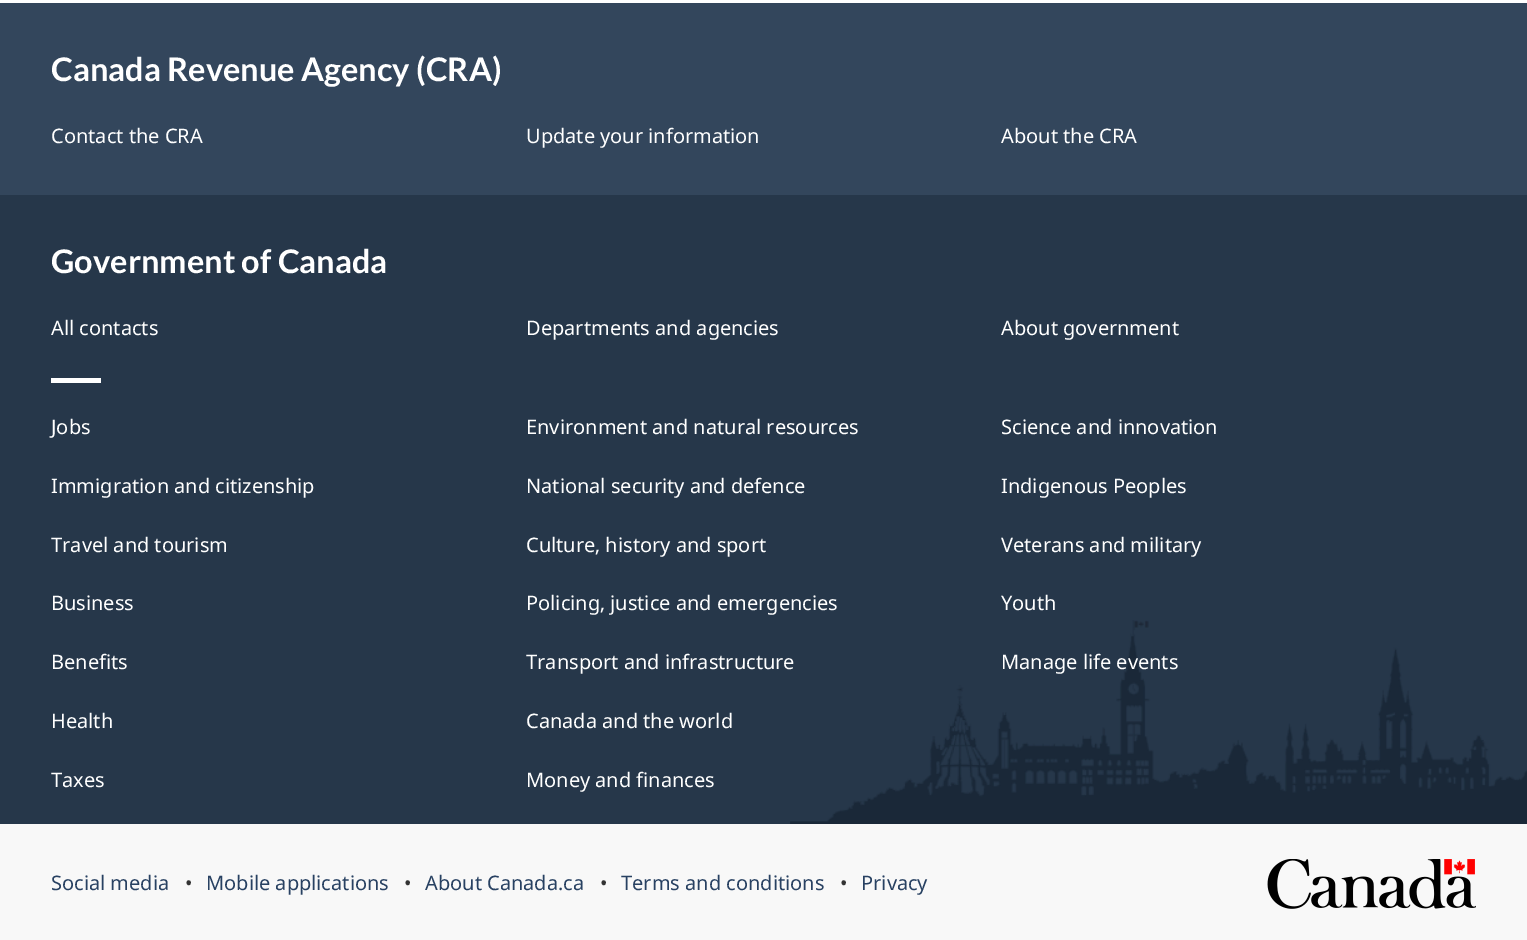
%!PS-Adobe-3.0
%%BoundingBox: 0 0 1527 940
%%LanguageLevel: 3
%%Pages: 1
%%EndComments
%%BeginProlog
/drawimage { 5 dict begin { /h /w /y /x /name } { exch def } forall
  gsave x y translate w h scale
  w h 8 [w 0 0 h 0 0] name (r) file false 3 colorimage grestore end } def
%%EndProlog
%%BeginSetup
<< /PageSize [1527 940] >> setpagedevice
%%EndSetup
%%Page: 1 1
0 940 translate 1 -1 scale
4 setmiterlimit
1 setgray
0 0 1527 940 rectfill
0.2 0.275 0.361 setrgbcolor
0 3 1527 192 rectfill
0.149 0.216 0.29 setrgbcolor
0 195 1527 629 rectfill
(images/1.raw) 790 620 737 204 drawimage
1 setgray
51 378 50 5 rectfill
0.973 setgray
0 824 1527 116 rectfill
(images/2.raw) 1267 859 209 50 drawimage
/Lato-Bold [32.5 0 0 -32.5 0 0] selectfont
1 setgray
51 81 moveto (Canada Revenue Agency \(CRA\)) show
/NotoSans-Regular [20 0 0 -20 0 0] selectfont
51 143 moveto (Contact the CRA) show
526 143 moveto (Update your information) show
1001 143 moveto (About the CRA) show
/Lato-Bold [32.5 0 0 -32.5 0 0] selectfont
51 273 moveto (Government of Canada) show
/NotoSans-Regular [20 0 0 -20 0 0] selectfont
51 335 moveto (All contacts) show
526 335 moveto (Departments and agencies) show
1001 335 moveto (About government) show
51 434 moveto (Jobs) show
526 434 moveto (Environment and natural resources) show
1001 434 moveto (Science and innovation) show
51 493 moveto (Immigration and citizenship) show
526 493 moveto (National security and defence) show
1001 493 moveto (Indigenous Peoples) show
51 552 moveto (Travel and tourism) show
526 552 moveto (Culture, history and sport) show
1001 552 moveto (Veterans and military) show
51 610 moveto (Business) show
526 610 moveto (Policing, justice and emergencies) show
1001 610 moveto (Youth) show
51 669 moveto (Benefits) show
526 669 moveto (Transport and infrastructure) show
1001 669 moveto (Manage life events) show
51 728 moveto (Health) show
526 728 moveto (Canada and the world) show
51 787 moveto (Taxes) show
526 787 moveto (Money and finances) show
0.157 0.255 0.384 setrgbcolor
51 890 moveto (Social media) show
0.2 setgray
185 890 moveto (•) show
0.157 0.255 0.384 setrgbcolor
206 890 moveto (Mobile applications) show
0.2 setgray
404 890 moveto (•) show
0.157 0.255 0.384 setrgbcolor
425 890 moveto (About Canada.ca) show
0.2 setgray
600 890 moveto (•) show
0.157 0.255 0.384 setrgbcolor
621 890 moveto (Terms and conditions) show
0.2 setgray
840 890 moveto (•) show
0.157 0.255 0.384 setrgbcolor
861 890 moveto (Privacy) show
showpage
%%EOF
